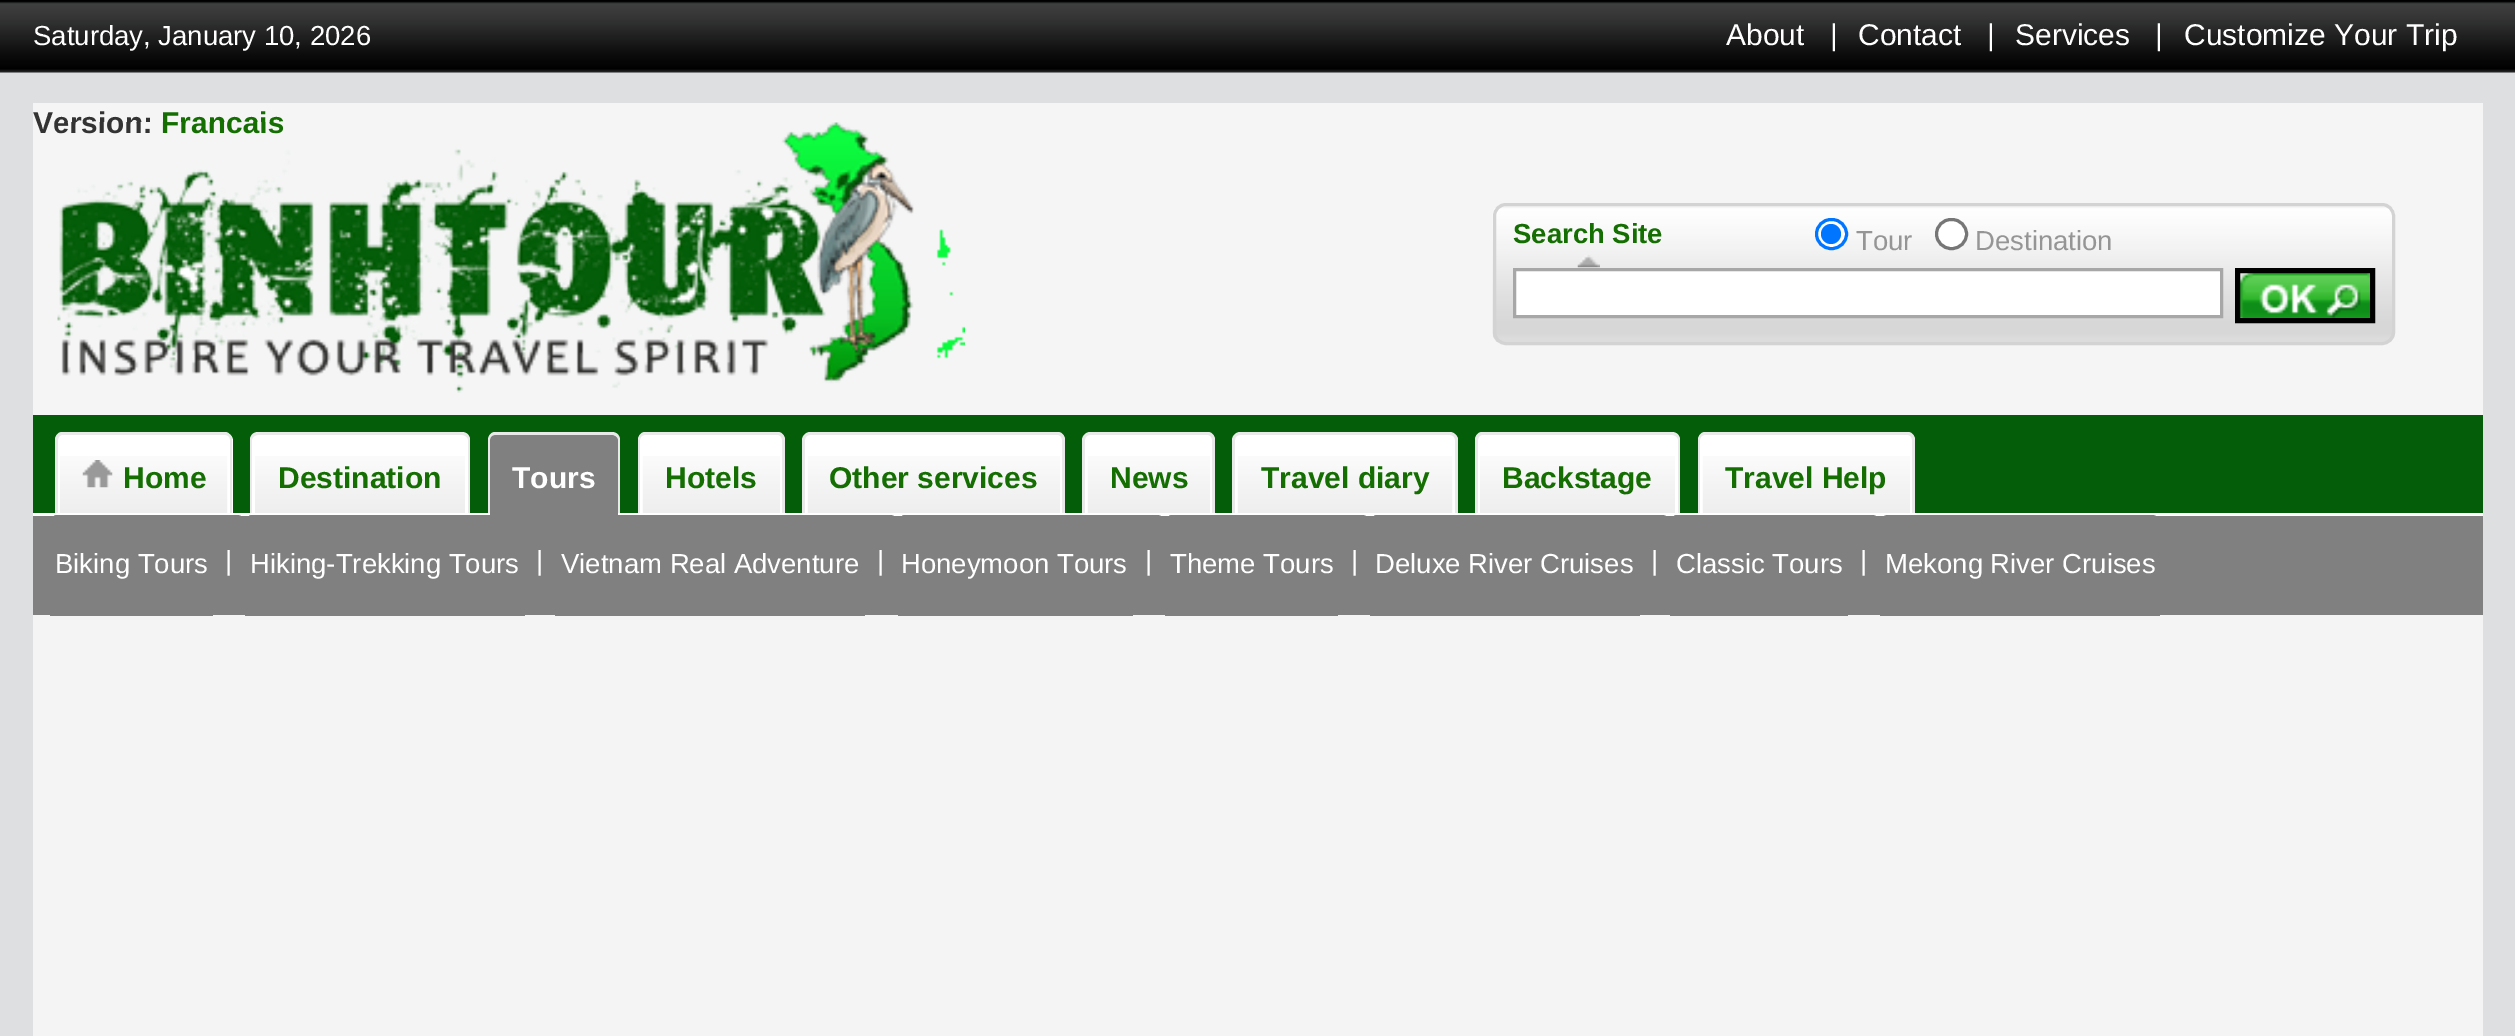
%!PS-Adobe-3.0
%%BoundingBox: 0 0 2515 1036
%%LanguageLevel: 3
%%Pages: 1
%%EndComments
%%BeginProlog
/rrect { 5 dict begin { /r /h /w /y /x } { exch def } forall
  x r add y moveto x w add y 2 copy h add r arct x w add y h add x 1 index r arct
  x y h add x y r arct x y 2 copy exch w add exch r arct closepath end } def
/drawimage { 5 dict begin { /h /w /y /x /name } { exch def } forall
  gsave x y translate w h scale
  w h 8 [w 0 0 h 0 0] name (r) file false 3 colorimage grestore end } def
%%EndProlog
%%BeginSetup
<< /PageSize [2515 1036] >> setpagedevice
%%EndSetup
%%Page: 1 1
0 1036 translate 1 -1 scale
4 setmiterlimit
0.867 0.875 0.878 setrgbcolor
0 0 2515 1036 rectfill
(images/1.raw) 0 0 2515 73 drawimage
0.961 0.961 0.965 setrgbcolor
33 103 2450 312 rectfill
(images/3.raw) 1492 208 903 135 drawimage
0.827 setgray
3 setlinewidth
1494.5 204.5 899 139 11.5 rrect stroke
(images/4.raw) 1577 255 23 13 drawimage
1 setgray
1816.5 219.5 30 29 14.5 rrect gsave fill grestore
0 0.459 1 setrgbcolor
stroke
newpath 1831 234 10 0 360 arc closepath fill
1 setgray
1936.5 219.5 30 29 14.5 rrect gsave fill grestore
0.463 setgray
stroke
1 setgray
newpath 1514.5 269.5 moveto 2221.5 269.5 lineto 2221.5 316.5 lineto 1514.5 316.5 lineto closepath gsave fill grestore
0.655 setgray
stroke
(images/5.raw) 2240 273 130 45 drawimage
0 setgray
5 setlinewidth
2237.5 270.5 135 50 rectstroke
0.016 0.365 0.035 setrgbcolor
33 415 2450 98 rectfill
1 setgray
newpath 258 433 moveto 462 433 lineto 466.5 433 470 436.5 470 441 curveto 470 520 lineto 250 520 lineto 250 441 lineto 250 436.5 253.5 433 258 433 curveto closepath fill
0.914 setgray
newpath 258 432 moveto 462 432 lineto 467 432 470 436 470 440 curveto 470 520 lineto 250 520 lineto 250 440 lineto 250 436 253 432 258 432 curveto closepath 258 435 moveto 462 435 lineto 465 435 468 437 468 440 curveto 468 520 lineto 252 520 lineto 252 440 lineto 252 437 255 435 258 435 curveto closepath eofill
(images/6.raw) 255 456 210 57 drawimage
1 setgray
newpath 646 433 moveto 777 433 lineto 781.5 433 785 436.5 785 441 curveto 785 520 lineto 638 520 lineto 638 441 lineto 638 436.5 641.5 433 646 433 curveto closepath fill
0.914 setgray
newpath 645 432 moveto 778 432 lineto 782 432 785 436 785 440 curveto 785 520 lineto 638 520 lineto 638 440 lineto 638 436 641 432 645 432 curveto closepath 645 435 moveto 778 435 lineto 780 435 782 437 782 440 curveto 782 520 lineto 640 520 lineto 640 440 lineto 640 437 642 435 645 435 curveto closepath eofill
(images/7.raw) 642 456 138 57 drawimage
1 setgray
newpath 811 433 moveto 1057 433 lineto 1061.5 433 1065 436.5 1065 441 curveto 1065 520 lineto 803 520 lineto 803 441 lineto 803 436.5 806.5 433 811 433 curveto closepath fill
0.914 setgray
newpath 810 432 moveto 1058 432 lineto 1062 432 1065 436 1065 440 curveto 1065 520 lineto 802 520 lineto 802 440 lineto 802 436 806 432 810 432 curveto closepath 810 435 moveto 1058 435 lineto 1060 435 1062 437 1062 440 curveto 1062 520 lineto 805 520 lineto 805 440 lineto 805 437 807 435 810 435 curveto closepath eofill
(images/8.raw) 807 456 253 57 drawimage
1 setgray
newpath 1241 433 moveto 1450 433 lineto 1454.5 433 1458 436.5 1458 441 curveto 1458 520 lineto 1233 520 lineto 1233 441 lineto 1233 436.5 1236.5 433 1241 433 curveto closepath fill
0.914 setgray
newpath 1240 432 moveto 1450 432 lineto 1454 432 1458 436 1458 440 curveto 1458 520 lineto 1232 520 lineto 1232 440 lineto 1232 436 1236 432 1240 432 curveto closepath 1240 435 moveto 1450 435 lineto 1453 435 1455 437 1455 440 curveto 1455 520 lineto 1235 520 lineto 1235 440 lineto 1235 437 1237 435 1240 435 curveto closepath eofill
(images/9.raw) 1237 456 216 57 drawimage
1 setgray
newpath 1483 433 moveto 1672 433 lineto 1676.5 433 1680 436.5 1680 441 curveto 1680 520 lineto 1475 520 lineto 1475 441 lineto 1475 436.5 1478.5 433 1483 433 curveto closepath fill
0.914 setgray
newpath 1482 432 moveto 1672 432 lineto 1677 432 1680 436 1680 440 curveto 1680 520 lineto 1475 520 lineto 1475 440 lineto 1475 436 1478 432 1482 432 curveto closepath 1482 435 moveto 1672 435 lineto 1675 435 1678 437 1678 440 curveto 1678 520 lineto 1478 520 lineto 1478 440 lineto 1478 437 1480 435 1482 435 curveto closepath eofill
(images/10.raw) 1480 456 195 57 drawimage
1 setgray
newpath 1706 433 moveto 1907 433 lineto 1911.5 433 1915 436.5 1915 441 curveto 1915 520 lineto 1698 520 lineto 1698 441 lineto 1698 436.5 1701.5 433 1706 433 curveto closepath fill
0.914 setgray
newpath 1705 432 moveto 1908 432 lineto 1912 432 1915 436 1915 440 curveto 1915 520 lineto 1698 520 lineto 1698 440 lineto 1698 436 1701 432 1705 432 curveto closepath 1705 435 moveto 1908 435 lineto 1910 435 1912 437 1912 440 curveto 1912 520 lineto 1700 520 lineto 1700 440 lineto 1700 437 1702 435 1705 435 curveto closepath eofill
(images/11.raw) 1702 456 208 57 drawimage
0.502 setgray
newpath 496 433 moveto 612 433 lineto 616.5 433 620 436.5 620 441 curveto 620 525 lineto 488 525 lineto 488 441 lineto 488 436.5 491.5 433 496 433 curveto closepath fill
0.914 setgray
newpath 495 432 moveto 612 432 lineto 617 432 620 436 620 440 curveto 620 525 lineto 488 525 lineto 488 440 lineto 488 436 491 432 495 432 curveto closepath 495 435 moveto 612 435 lineto 615 435 618 437 618 440 curveto 618 525 lineto 490 525 lineto 490 440 lineto 490 437 492 435 495 435 curveto closepath eofill
1 setgray
newpath 63 433 moveto 225 433 lineto 229.5 433 233 436.5 233 441 curveto 233 520 lineto 55 520 lineto 55 441 lineto 55 436.5 58.5 433 63 433 curveto closepath fill
0.914 setgray
newpath 62 432 moveto 225 432 lineto 229 432 232 436 232 440 curveto 232 520 lineto 55 520 lineto 55 440 lineto 55 436 58 432 62 432 curveto closepath 62 435 moveto 225 435 lineto 228 435 230 437 230 440 curveto 230 520 lineto 58 520 lineto 58 440 lineto 58 437 60 435 62 435 curveto closepath eofill
1 setgray
newpath 1091 433 moveto 1207 433 lineto 1211.5 433 1215 436.5 1215 441 curveto 1215 520 lineto 1083 520 lineto 1083 441 lineto 1083 436.5 1086.5 433 1091 433 curveto closepath fill
0.914 setgray
newpath 1090 432 moveto 1208 432 lineto 1212 432 1215 436 1215 440 curveto 1215 520 lineto 1082 520 lineto 1082 440 lineto 1082 436 1086 432 1090 432 curveto closepath 1090 435 moveto 1208 435 lineto 1210 435 1212 437 1212 440 curveto 1212 520 lineto 1085 520 lineto 1085 440 lineto 1085 437 1087 435 1090 435 curveto closepath eofill
0.502 setgray
33 516 2450 99 rectfill
1 setgray
33 513 2450 3 rectfill
0.502 setgray
newpath 253 515 moveto 547 515 lineto 551.5 515 555 518.5 555 523 curveto 555 615 lineto 245 615 lineto 245 523 lineto 245 518.5 248.5 515 253 515 curveto closepath fill
newpath 253 515 moveto 517 515 lineto 521.5 515 525 518.5 525 523 curveto 525 615 lineto 245 615 lineto 245 523 lineto 245 518.5 248.5 515 253 515 curveto closepath fill
newpath 563 515 moveto 890 515 lineto 894.5 515 898 518.5 898 523 curveto 898 615 lineto 555 615 lineto 555 523 lineto 555 518.5 558.5 515 563 515 curveto closepath fill
newpath 563 515 moveto 857 515 lineto 861.5 515 865 518.5 865 523 curveto 865 615 lineto 555 615 lineto 555 523 lineto 555 518.5 558.5 515 563 515 curveto closepath fill
newpath 498 435 moveto 610 435 lineto 614.5 435 618 438.5 618 443 curveto 618 525 lineto 490 525 lineto 490 443 lineto 490 438.5 493.5 435 498 435 curveto closepath fill
newpath 58 515 moveto 237 515 lineto 241.5 515 245 518.5 245 523 curveto 245 615 lineto 50 615 lineto 50 523 lineto 50 518.5 53.5 515 58 515 curveto closepath fill
newpath 58 515 moveto 205 515 lineto 209.5 515 213 518.5 213 523 curveto 213 615 lineto 50 615 lineto 50 523 lineto 50 518.5 53.5 515 58 515 curveto closepath fill
0.957 setgray
33 615 2450 421 rectfill
0.502 setgray
50 615 163 1 rectfill
245 615 280 1 rectfill
555 615 310 1 rectfill
newpath 906 515 moveto 1157 515 lineto 1161.5 515 1165 518.5 1165 523 curveto 1165 615 lineto 898 615 lineto 898 523 lineto 898 518.5 901.5 515 906 515 curveto closepath fill
newpath 906 515 moveto 1125 515 lineto 1129.5 515 1133 518.5 1133 523 curveto 1133 615 lineto 898 615 lineto 898 523 lineto 898 518.5 901.5 515 906 515 curveto closepath fill
898 615 235 1 rectfill
newpath 1173 515 moveto 1362 515 lineto 1366.5 515 1370 518.5 1370 523 curveto 1370 615 lineto 1165 615 lineto 1165 523 lineto 1165 518.5 1168.5 515 1173 515 curveto closepath fill
newpath 1173 515 moveto 1330 515 lineto 1334.5 515 1338 518.5 1338 523 curveto 1338 615 lineto 1165 615 lineto 1165 523 lineto 1165 518.5 1168.5 515 1173 515 curveto closepath fill
1165 615 173 1 rectfill
newpath 1378 515 moveto 1662 515 lineto 1666.5 515 1670 518.5 1670 523 curveto 1670 615 lineto 1370 615 lineto 1370 523 lineto 1370 518.5 1373.5 515 1378 515 curveto closepath fill
newpath 1378 515 moveto 1632 515 lineto 1636.5 515 1640 518.5 1640 523 curveto 1640 615 lineto 1370 615 lineto 1370 523 lineto 1370 518.5 1373.5 515 1378 515 curveto closepath fill
1370 615 270 1 rectfill
newpath 1678 515 moveto 1872 515 lineto 1876.5 515 1880 518.5 1880 523 curveto 1880 615 lineto 1670 615 lineto 1670 523 lineto 1670 518.5 1673.5 515 1678 515 curveto closepath fill
newpath 1678 515 moveto 1840 515 lineto 1844.5 515 1848 518.5 1848 523 curveto 1848 615 lineto 1670 615 lineto 1670 523 lineto 1670 518.5 1673.5 515 1678 515 curveto closepath fill
1670 615 178 1 rectfill
newpath 1888 515 moveto 2152 515 lineto 2156.5 515 2160 518.5 2160 523 curveto 2160 615 lineto 1880 615 lineto 1880 523 lineto 1880 518.5 1883.5 515 1888 515 curveto closepath fill
1880 615 280 1 rectfill
(images/12.raw) 60 456 168 57 drawimage
(images/13.raw) 82 460 31 28 drawimage
(images/14.raw) 1087 456 123 57 drawimage
/LiberationSans-Regular [27.5 0 0 -27.5 0 0] selectfont
1 setgray
33 45 moveto (Saturday, January 10, 2026) show
/LiberationSans-Regular [30 0 0 -30 0 0] selectfont
1726 45 moveto (About) show
1830 45 moveto (|) show
1858 45 moveto (Contact) show
1987 45 moveto (|) show
2015 45 moveto (Services) show
2155 45 moveto (|) show
2184 45 moveto (Customize Your Trip) show
/LiberationSans-Bold [30 0 0 -30 0 0] selectfont
0.2 setgray
33 133 moveto (Version:) show
0.078 0.431 0.008 setrgbcolor
161 133 moveto (Francais) show
(images/2.raw) 57 122 908 271 drawimage
/LiberationSans-Bold [27.5 0 0 -27.5 0 0] selectfont
1513 243 moveto (Search Site) show
/LiberationSans-Regular [27.5 0 0 -27.5 0 0] selectfont
0.584 setgray
1856 250 moveto (Tour) show
1975 250 moveto (Destination) show
/LiberationSans-Bold [30 0 0 -30 0 0] selectfont
0.078 0.431 0.008 setrgbcolor
278 488 moveto (Destination) show
665 488 moveto (Hotels) show
829 488 moveto (Other services) show
1261 488 moveto (Travel diary) show
1502 488 moveto (Backstage) show
1725 488 moveto (Travel Help) show
1 setgray
512 488 moveto (Tours) show
/LiberationSans-Regular [27.5 0 0 -27.5 0 0] selectfont
55 573 moveto (Biking Tours) show
225 570 moveto (|) show
250 573 moveto (Hiking-Trekking Tours) show
536 570 moveto (|) show
561 573 moveto (Vietnam Real Adventure) show
877 570 moveto (|) show
901 573 moveto (Honeymoon Tours) show
1145 570 moveto (|) show
1170 573 moveto (Theme Tours) show
1351 570 moveto (|) show
1375 573 moveto (Deluxe River Cruises) show
1651 570 moveto (|) show
1676 573 moveto (Classic Tours) show
1860 570 moveto (|) show
1885 573 moveto (Mekong River Cruises) show
/LiberationSans-Bold [30 0 0 -30 0 0] selectfont
0.078 0.431 0.008 setrgbcolor
123 488 moveto (Home) show
1110 488 moveto (News) show
showpage
%%EOF
